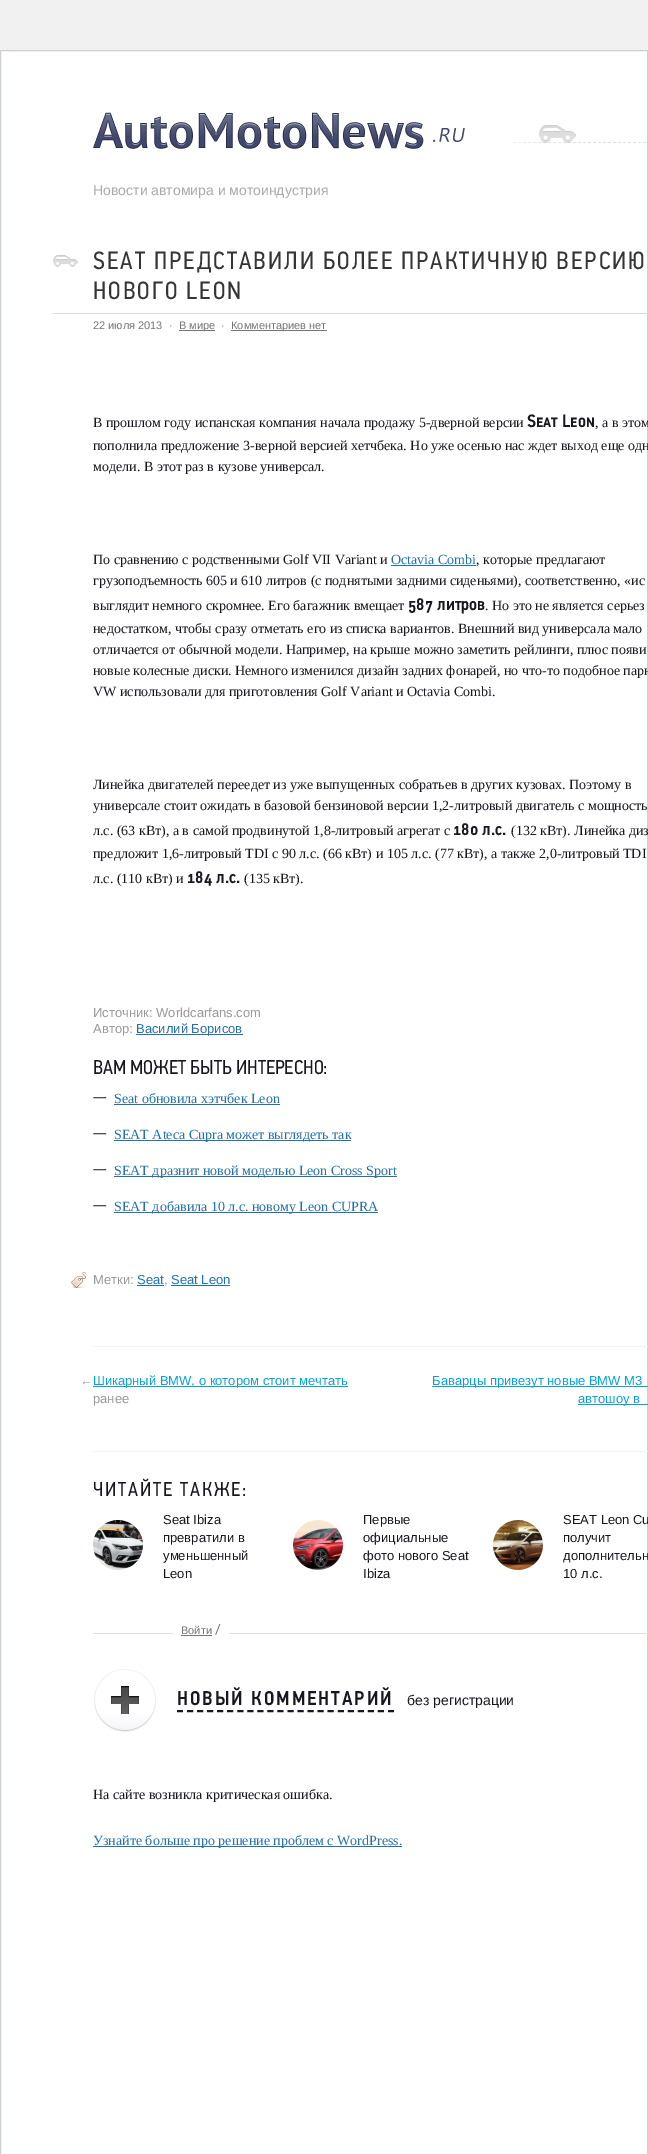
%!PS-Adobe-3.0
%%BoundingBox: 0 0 648 2154
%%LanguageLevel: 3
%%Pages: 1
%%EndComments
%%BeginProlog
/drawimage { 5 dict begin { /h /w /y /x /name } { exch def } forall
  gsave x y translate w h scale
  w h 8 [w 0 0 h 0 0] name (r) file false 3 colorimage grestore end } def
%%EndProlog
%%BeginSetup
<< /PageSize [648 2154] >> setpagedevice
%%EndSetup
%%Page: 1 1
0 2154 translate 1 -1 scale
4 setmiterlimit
0.945 setgray
0 0 648 2154 rectfill
1 setgray
newpath 0.5 50.5 moveto 647.5 50.5 lineto 647.5 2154.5 lineto 0.5 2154.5 lineto closepath gsave fill grestore
0.8 0.816 0.831 setrgbcolor
stroke
(images/1.raw) 513 125 133 18 drawimage
(images/2.raw) 93 112 372 37 drawimage
(images/3.raw) 53 255 25 12 drawimage
0.855 setgray
53 313 595 1 rectfill
0.459 setgray
179 330 36 1 rectfill
231 330 96 1 rectfill
0.133 0.443 0.694 setrgbcolor
391 565 85 1 rectfill
136 1034 107 1 rectfill
(images/4.raw) 93 1097 14 2 drawimage
114 1104 166 1 rectfill
(images/4.raw) 93 1133 14 2 drawimage
114 1140 237 1 rectfill
(images/4.raw) 93 1169 14 2 drawimage
114 1176 283 1 rectfill
(images/4.raw) 93 1205 14 2 drawimage
114 1212 264 1 rectfill
(images/5.raw) 71 1272 15 16 drawimage
137 1285 27 1 rectfill
171 1285 59 1 rectfill
0.953 setgray
93 1346 555 1 rectfill
93 1451 555 1 rectfill
0 0.647 0.875 setrgbcolor
93 1386 255 1 rectfill
432 1386 216 1 rectfill
578 1404 70 1 rectfill
(images/6.raw) 93 1520 50 50 drawimage
(images/7.raw) 93 1520 50 50 drawimage
(images/8.raw) 293 1520 50 50 drawimage
(images/9.raw) 293 1520 50 50 drawimage
(images/10.raw) 493 1520 50 50 drawimage
(images/11.raw) 493 1520 50 50 drawimage
0.894 0.886 0.847 setrgbcolor
93 1633 555 1 rectfill
1 setgray
173 1633 56 1 rectfill
0.459 setgray
181 1635 31 1 rectfill
(images/12.raw) 94 1669 62 63 drawimage
0.094 0.09 0.129 setrgbcolor
2 setlinewidth
[6 4.05] 0 setdash
newpath 177 1711 moveto 394 1711 lineto stroke
0.133 0.443 0.694 setrgbcolor
93 1846 309 1 rectfill
/LiberationSans-Regular [14 0 0 -14 0 0] selectfont
0.667 setgray
93 195 moveto (Новости автомира и мотоиндустрия) show
/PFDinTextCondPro-Regular [25 0 0 -25 0 0] selectfont
0.208 setgray
93 269 moveto 2 0 (SEAT ПРЕДСТАВИЛИ БОЛЕЕ ПРАКТИЧНУЮ ВЕРСИЮ) ashow
93 299 moveto 2 0 (НОВОГО LEON) ashow
/LiberationSans-Regular [11 0 0 -11 0 0] selectfont
0.459 setgray
93 329 moveto (22 июля 2013) show
169 329 moveto (·) show
179 329 moveto (В мире) show
221 329 moveto (·) show
231 329 moveto (Комментариев нет) show
/LiberationSerif-Regular [14 0 0 -14 0 0] selectfont
0.094 0.09 0.129 setrgbcolor
93 427 moveto (В прошлом году испанская компания начала продажу 5-дверной версии) show
/PFDinTextCondPro-Medium [18 0 0 -18 0 0] selectfont
527 427 moveto (Seat Leon) show
/LiberationSerif-Regular [14 0 0 -14 0 0] selectfont
595 427 moveto (, а в этом) show
93 450 moveto (пополнила предложение 3-верной версией хетчбека. Но уже осенью нас ждет выход еще одн) show
93 471 moveto (модели. В этот раз в кузове универсал.) show
93 564 moveto (По сравнению с родственными Golf VII Variant и) show
0.133 0.443 0.694 setrgbcolor
391 564 moveto (Octavia Combi) show
0.094 0.09 0.129 setrgbcolor
476 564 moveto (, которые предлагают) show
93 585 moveto (грузоподъемность 605 и 610 литров \(с поднятыми задними сиденьями\), соответственно, «ис) show
93 610 moveto (выглядит немного скромнее. Его багажник вмещает) show
/PFDinTextCondPro-Medium [18 0 0 -18 0 0] selectfont
408 610 moveto (587 литров) show
/LiberationSerif-Regular [14 0 0 -14 0 0] selectfont
485 610 moveto (. Но это не является серьез) show
93 633 moveto (недостатком, чтобы сразу отметать его из списка вариантов. Внешний вид универсала мало) show
93 654 moveto (отличается от обычной модели. Например, на крыше можно заметить рейлинги, плюс появи) show
93 675 moveto (новые колесные диски. Немного изменился дизайн задних фонарей, но что-то подобное парн) show
93 696 moveto (VW использовали для приготовления Golf Variant и Octavia Combi.) show
93 789 moveto (Линейка двигателей переедет из уже выпущенных собратьев в других кузовах. Поэтому в) show
93 810 moveto (универсале стоит ожидать в базовой бензиновой версии 1,2-литровый двигатель с мощность) show
93 835 moveto (л.с. \(63 кВт\), а в самой продвинутой 1,8-литровый агрегат с) show
/PFDinTextCondPro-Medium [18 0 0 -18 0 0] selectfont
453 835 moveto (180 л.с.) show
/LiberationSerif-Regular [14 0 0 -14 0 0] selectfont
511 835 moveto (\(132 кВт\). Линейка диз) show
93 858 moveto (предложит 1,6-литровый TDI с 90 л.с. \(66 кВт\) и 105 л.с. \(77 кВт\), а также 2,0-литровый TDI) show
93 883 moveto (л.с. \(110 кВт\) и) show
/PFDinTextCondPro-Medium [18 0 0 -18 0 0] selectfont
187 883 moveto (184 л.с.) show
/LiberationSerif-Regular [14 0 0 -14 0 0] selectfont
244 883 moveto (\(135 кВт\).) show
/LiberationSans-Regular [13 0 0 -13 0 0] selectfont
0.6 setgray
93 1017 moveto (Источник: Worldcarfans.com) show
93 1033 moveto (Автор:) show
0.133 0.443 0.694 setrgbcolor
136 1033 moveto (Василий Борисов) show
/PFDinTextCondPro-Regular [20 0 0 -20 0 0] selectfont
0.094 0.09 0.129 setrgbcolor
93 1074 moveto (ВАМ МОЖЕТ БЫТЬ ИНТЕРЕСНО:) show
/LiberationSerif-Regular [14 0 0 -14 0 0] selectfont
0.133 0.443 0.694 setrgbcolor
114 1103 moveto (Seat обновила хэтчбек Leon) show
114 1139 moveto (SEAT Ateca Cupra может выглядеть так) show
114 1175 moveto (SEAT дразнит новой моделью Leon Cross Sport) show
114 1211 moveto (SEAT добавила 10 л.с. новому Leon CUPRA) show
/LiberationSans-Regular [13 0 0 -13 0 0] selectfont
0.6 setgray
93 1284 moveto (Метки:) show
0.133 0.443 0.694 setrgbcolor
137 1284 moveto (Seat) show
0.6 setgray
164 1284 moveto (,) show
0.133 0.443 0.694 setrgbcolor
171 1284 moveto (Seat Leon) show
0.6 setgray
80 1385 moveto (←) show
0 0.647 0.875 setrgbcolor
93 1385 moveto (Шикарный BMW, о котором стоит мечтать) show
0.6 setgray
93 1403 moveto (ранее) show
0 0.647 0.875 setrgbcolor
432 1385 moveto (Баварцы привезут новые BMW M3) show
578 1403 moveto (автошоу в) show
/PFDinTextCondPro-Regular [20 0 0 -20 0 0] selectfont
0.094 0.09 0.129 setrgbcolor
93 1496 moveto 1.9 0 (ЧИТАЙТЕ ТАКЖЕ:) ashow
/LiberationSans-Regular [13 0 0 -13 0 0] selectfont
163 1524 moveto (Seat Ibiza) show
163 1542 moveto (превратили в) show
163 1560 moveto (уменьшенный) show
163 1578 moveto (Leon) show
363 1524 moveto (Первые) show
363 1542 moveto (официальные) show
363 1560 moveto (фото нового Seat) show
363 1578 moveto (Ibiza) show
563 1524 moveto (SEAT Leon Cu) show
563 1542 moveto (получит) show
563 1560 moveto (дополнительн) show
563 1578 moveto (10 л.с.) show
/LiberationSans-Regular [11 0 0 -11 0 0] selectfont
0.459 setgray
181 1634 moveto (Войти) show
/Roboto-Regular [14 0 0 -14 0 0] selectfont
215 1634 moveto (/) show
/PFDinTextCondPro-Medium [20 0 0 -20 0 0] selectfont
0.094 0.09 0.129 setrgbcolor
177 1705 moveto 2 0 (НОВЫЙ КОММЕНТАРИЙ) ashow
/LiberationSans-Regular [14 0 0 -14 0 0] selectfont
407 1705 moveto (без регистрации) show
/LiberationSerif-Regular [14 0 0 -14 0 0] selectfont
93 1799 moveto (На сайте возникла критическая ошибка.) show
0.133 0.443 0.694 setrgbcolor
93 1845 moveto (Узнайте больше про решение проблем с WordPress.) show
showpage
%%EOF
